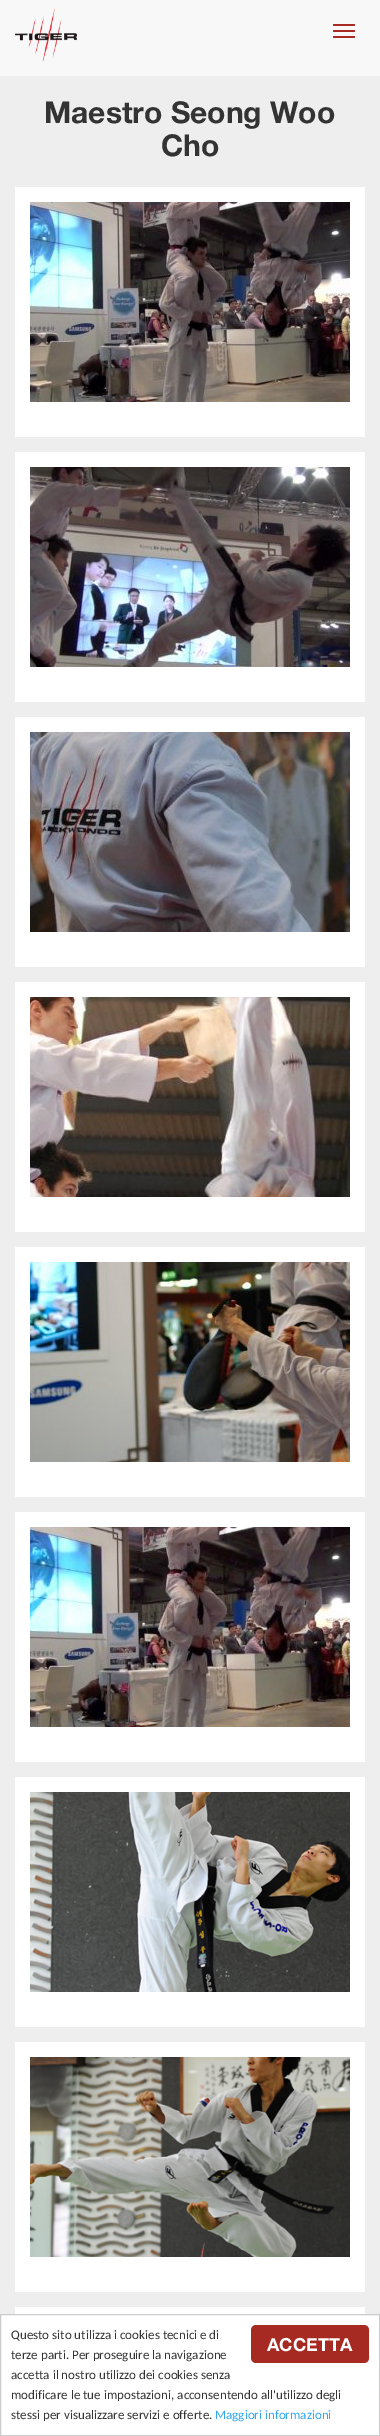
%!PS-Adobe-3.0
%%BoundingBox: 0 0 380 2436
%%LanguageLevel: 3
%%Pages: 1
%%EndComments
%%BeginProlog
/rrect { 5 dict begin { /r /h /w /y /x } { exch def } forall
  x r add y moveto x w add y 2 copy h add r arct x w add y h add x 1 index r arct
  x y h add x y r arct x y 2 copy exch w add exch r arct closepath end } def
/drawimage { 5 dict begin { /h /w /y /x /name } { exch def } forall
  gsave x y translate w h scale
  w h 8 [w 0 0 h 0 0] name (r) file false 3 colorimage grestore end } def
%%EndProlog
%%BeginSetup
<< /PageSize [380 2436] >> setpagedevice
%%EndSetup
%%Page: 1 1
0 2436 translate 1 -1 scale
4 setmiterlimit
0.937 0.933 0.933 setrgbcolor
0 0 380 2436 rectfill
0.973 setgray
0 0 380 76 rectfill
(images/1.raw) 15 8 62 54 drawimage
0.651 0.165 0.129 setrgbcolor
333 24 22 2 1 rrect fill
333 30 22 2 1 rrect fill
333 36 22 2 1 rrect fill
1 setgray
15 187 350 250 rectfill
(images/2.raw) 30 202 320 200 drawimage
15 452 350 250 rectfill
(images/3.raw) 30 467 320 200 drawimage
15 717 350 250 rectfill
(images/4.raw) 30 732 320 200 drawimage
15 982 350 250 rectfill
(images/5.raw) 30 997 320 200 drawimage
15 1247 350 250 rectfill
(images/6.raw) 30 1262 320 200 drawimage
15 1512 350 250 rectfill
(images/7.raw) 30 1527 320 200 drawimage
15 1777 350 250 rectfill
(images/8.raw) 30 1792 320 200 drawimage
15 2042 350 250 rectfill
(images/9.raw) 30 2057 320 200 drawimage
15 2307 350 7 rectfill
newpath 0.5 2314.5 moveto 379.5 2314.5 lineto 379.5 2435.5 lineto 0.5 2435.5 lineto closepath gsave fill grestore
0.8 setgray
stroke
0.651 0.165 0.129 setrgbcolor
251 2325 118 38 5 rrect fill
/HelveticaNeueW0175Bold-Bold [30 0 0 -30 0 0] selectfont
0.2 setgray
44 123 moveto (Maestro Seong Woo) show
161 156 moveto (Cho) show
/Carlito-Regular [13 0 0 -13 0 0] selectfont
11 2339 moveto (Questo sito utilizza i cookies tecnici e di) show
11 2359 moveto (terze parti. Per proseguire la navigazione) show
11 2379 moveto (accetta il nostro utilizzo dei cookies senza) show
11 2399 moveto (modificare le tue impostazioni, acconsentendo all'utilizzo degli) show
11 2419 moveto (stessi per visualizzare servizi e offerte.) show
0.192 0.659 0.941 setrgbcolor
215 2419 moveto (Maggiori informazioni) show
/HelveticaNeueW0175Bold-Bold [18 0 0 -18 0 0] selectfont
1 setgray
267 2351 moveto (ACCETTA) show
showpage
%%EOF
